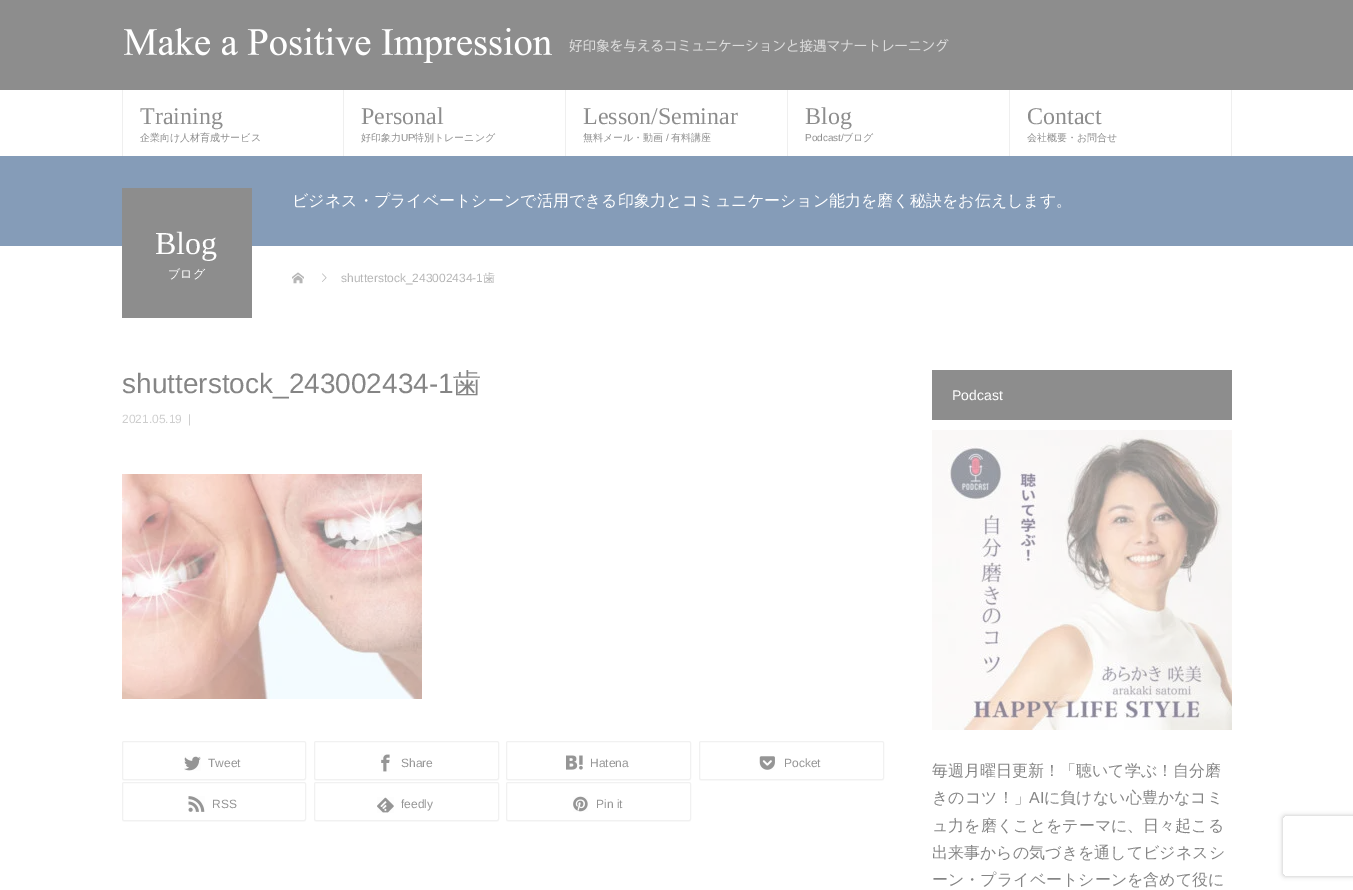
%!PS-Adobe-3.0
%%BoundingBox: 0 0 1353 890
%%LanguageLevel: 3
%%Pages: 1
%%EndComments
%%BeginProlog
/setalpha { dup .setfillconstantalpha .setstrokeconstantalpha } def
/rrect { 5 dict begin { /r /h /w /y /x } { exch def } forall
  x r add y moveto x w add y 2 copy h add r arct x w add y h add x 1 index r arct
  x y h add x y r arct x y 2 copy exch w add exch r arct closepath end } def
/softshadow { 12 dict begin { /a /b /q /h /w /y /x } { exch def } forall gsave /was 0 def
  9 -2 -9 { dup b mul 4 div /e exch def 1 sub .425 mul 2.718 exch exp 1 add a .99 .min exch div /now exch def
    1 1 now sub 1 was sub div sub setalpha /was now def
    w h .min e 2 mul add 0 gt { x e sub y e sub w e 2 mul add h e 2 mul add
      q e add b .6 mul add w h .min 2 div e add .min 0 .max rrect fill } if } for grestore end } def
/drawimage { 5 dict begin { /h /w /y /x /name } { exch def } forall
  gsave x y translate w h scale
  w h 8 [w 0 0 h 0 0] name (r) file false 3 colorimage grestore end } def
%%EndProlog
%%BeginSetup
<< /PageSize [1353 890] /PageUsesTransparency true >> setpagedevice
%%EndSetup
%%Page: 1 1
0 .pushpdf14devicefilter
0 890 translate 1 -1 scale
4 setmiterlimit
1 setgray
0 0 1353 890 rectfill
0.553 setgray
0 0 1353 90 rectfill
(images/1.raw) 124 28 825 35 drawimage
0.937 setgray
343 90 1 66 rectfill
122 90 1 66 rectfill
565 90 1 66 rectfill
787 90 1 66 rectfill
1009 90 1 66 rectfill
1231 90 1 66 rectfill
0.522 0.612 0.722 setrgbcolor
0 156 1353 90 rectfill
0.553 setgray
122 188 130 130 rectfill
(images/2.raw) 292 272 12 12 drawimage
(images/3.raw) 322 273 5 9 drawimage
(images/4.raw) 122 474 300 225 drawimage
0.984 setgray
newpath 122 778 moveto 122 779 lineto 122 780 123 781 124 781 curveto 304 781 lineto 305 781 306 780 306 779 curveto 306 778 lineto 306 779 305 780 304 780 curveto 124 780 lineto 123 780 122 779 122 778 curveto closepath fill
0.945 setgray
122.5 741.5 183 38 1.5 rrect stroke
(images/5.raw) 184 756 17 15 drawimage
0.984 setgray
newpath 314 778 moveto 314 779 lineto 314 780 315 781 316 781 curveto 497 781 lineto 498 781 499 780 499 779 curveto 499 778 lineto 499 779 498 780 497 780 curveto 316 780 lineto 315 780 314 779 314 778 curveto closepath fill
0.945 setgray
314.5 741.5 184 38 1.5 rrect stroke
(images/6.raw) 381 754 9 18 drawimage
0.984 setgray
newpath 506 778 moveto 506 779 lineto 506 780 507 781 508 781 curveto 689 781 lineto 690 781 691 780 691 779 curveto 691 778 lineto 691 779 690 780 689 780 curveto 508 780 lineto 507 780 506 779 506 778 curveto closepath fill
0.945 setgray
506.5 741.5 184 38 1.5 rrect stroke
(images/7.raw) 566 755 17 15 drawimage
0.984 setgray
newpath 699 778 moveto 699 779 lineto 699 780 700 781 701 781 curveto 882 781 lineto 883 781 884 780 884 779 curveto 884 778 lineto 884 779 883 780 882 780 curveto 701 780 lineto 700 780 699 779 699 778 curveto closepath fill
0.945 setgray
699.5 741.5 184 38 1.5 rrect stroke
(images/8.raw) 759 756 16 14 drawimage
0.984 setgray
newpath 122 819 moveto 122 820 lineto 122 821 123 822 124 822 curveto 304 822 lineto 305 822 306 821 306 820 curveto 306 819 lineto 306 820 305 821 304 821 curveto 124 821 lineto 123 821 122 820 122 819 curveto closepath fill
0.945 setgray
122.5 782.5 183 38 1.5 rrect stroke
(images/9.raw) 188 796 17 16 drawimage
0.984 setgray
newpath 314 819 moveto 314 820 lineto 314 821 315 822 316 822 curveto 497 822 lineto 498 822 499 821 499 820 curveto 499 819 lineto 499 820 498 821 497 821 curveto 316 821 lineto 315 821 314 820 314 819 curveto closepath fill
0.945 setgray
314.5 782.5 184 38 1.5 rrect stroke
(images/10.raw) 377 797 17 16 drawimage
0.984 setgray
newpath 506 819 moveto 506 820 lineto 506 821 507 822 508 822 curveto 689 822 lineto 690 822 691 821 691 820 curveto 691 819 lineto 691 820 690 821 689 821 curveto 508 821 lineto 507 821 506 820 506 819 curveto closepath fill
0.945 setgray
506.5 782.5 184 38 1.5 rrect stroke
(images/11.raw) 573 796 15 16 drawimage
0.553 setgray
932 370 300 50 rectfill
(images/12.raw) 932 430 300 300 drawimage
gsave
newpath 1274 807 moveto 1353 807 lineto 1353 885 lineto 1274 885 lineto closepath 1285 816 moveto 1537 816 lineto 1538 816 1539 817 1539 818 curveto 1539 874 lineto 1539 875 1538 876 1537 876 curveto 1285 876 lineto 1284 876 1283 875 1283 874 curveto 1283 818 lineto 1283 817 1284 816 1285 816 curveto closepath eoclip newpath
0.761 setgray
1283 816 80 60 2 2.5 1 softshadow
grestore
/LiberationSerif-Regular [24 0 0 -24 0 0] selectfont
140 124 moveto (Training) show
/WenQuanYiZenHei-Medium [10 0 0 -10 0 0] selectfont
140 141 moveto (企業向け人材育成サービス) show
/LiberationSerif-Regular [24 0 0 -24 0 0] selectfont
361 124 moveto (Personal) show
/WenQuanYiZenHei-Medium [10 0 0 -10 0 0] selectfont
361 141 moveto (好印象力) show
/LiberationSans-Regular [10 0 0 -10 0 0] selectfont
401 141 moveto (UP) show
/WenQuanYiZenHei-Medium [10 0 0 -10 0 0] selectfont
414 141 moveto (特別トレーニング) show
/LiberationSerif-Regular [24 0 0 -24 0 0] selectfont
583 124 moveto (Lesson/Seminar) show
/WenQuanYiZenHei-Medium [10 0 0 -10 0 0] selectfont
583 141 moveto (無料メール・動画) show
/LiberationSans-Regular [10 0 0 -10 0 0] selectfont
666 141 moveto (/) show
/WenQuanYiZenHei-Medium [10 0 0 -10 0 0] selectfont
671 141 moveto (有料講座) show
/LiberationSerif-Regular [24 0 0 -24 0 0] selectfont
805 124 moveto (Blog) show
/LiberationSans-Regular [10 0 0 -10 0 0] selectfont
805 141 moveto (Podcast/) show
/WenQuanYiZenHei-Medium [10 0 0 -10 0 0] selectfont
843 141 moveto (ブログ) show
/LiberationSerif-Regular [24 0 0 -24 0 0] selectfont
1027 124 moveto (Contact) show
/WenQuanYiZenHei-Medium [10 0 0 -10 0 0] selectfont
1027 141 moveto (会社概要・お問合せ) show
/WenQuanYiZenHei-Medium [16 0 0 -16 0 0] selectfont
1 setgray
292 206 moveto (ビジネス・プライベートシーンで活用できる印象力とコミュニケーション能力を磨く秘訣をお伝えします。) show
/LiberationSerif-Regular [32 0 0 -32 0 0] selectfont
155 254 moveto (Blog) show
/WenQuanYiZenHei-Medium [12 0 0 -12 0 0] selectfont
168 278 moveto (ブログ) show
/LiberationSans-Regular [12 0 0 -12 0 0] selectfont
0.714 setgray
341 282 moveto (shutterstock_243002434-1) show
/WenQuanYiZenHei-Medium [12 0 0 -12 0 0] selectfont
483 282 moveto (歯) show
/LiberationSans-Regular [28 0 0 -28 0 0] selectfont
0.522 setgray
122 393 moveto (shutterstock_243002434-1) show
/WenQuanYiZenHei-Medium [28 0 0 -28 0 0] selectfont
453 393 moveto (歯) show
/LiberationSans-Regular [12 0 0 -12 0 0] selectfont
0.808 setgray
122 423 moveto (2021.05.19) show
188 423 moveto (|) show
0.584 setgray
208 767 moveto (Tweet) show
401 767 moveto (Share) show
590 767 moveto (Hatena) show
784 767 moveto (Pocket) show
212 808 moveto (RSS) show
401 808 moveto (feedly) show
596 808 moveto (Pin it) show
/LiberationSans-Regular [14 0 0 -14 0 0] selectfont
1 setgray
952 400 moveto (Podcast) show
/WenQuanYiZenHei-Medium [16 0 0 -16 0 0] selectfont
0.522 setgray
932 776 moveto (毎週月曜日更新！「聴いて学ぶ！自分磨) show
932 803 moveto (きのコツ！」) show
/LiberationSans-Regular [16 0 0 -16 0 0] selectfont
1029 803 moveto (AI) show
/WenQuanYiZenHei-Medium [16 0 0 -16 0 0] selectfont
1044 803 moveto (に負けない心豊かなコミ) show
932 831 moveto (ュ力を磨くことをテーマに、日々起こる) show
932 858 moveto (出来事からの気づきを通してビジネスシ) show
932 885 moveto (ーン・プライベートシーンを含めて役に) show
.poppdf14devicefilter showpage
%%EOF
